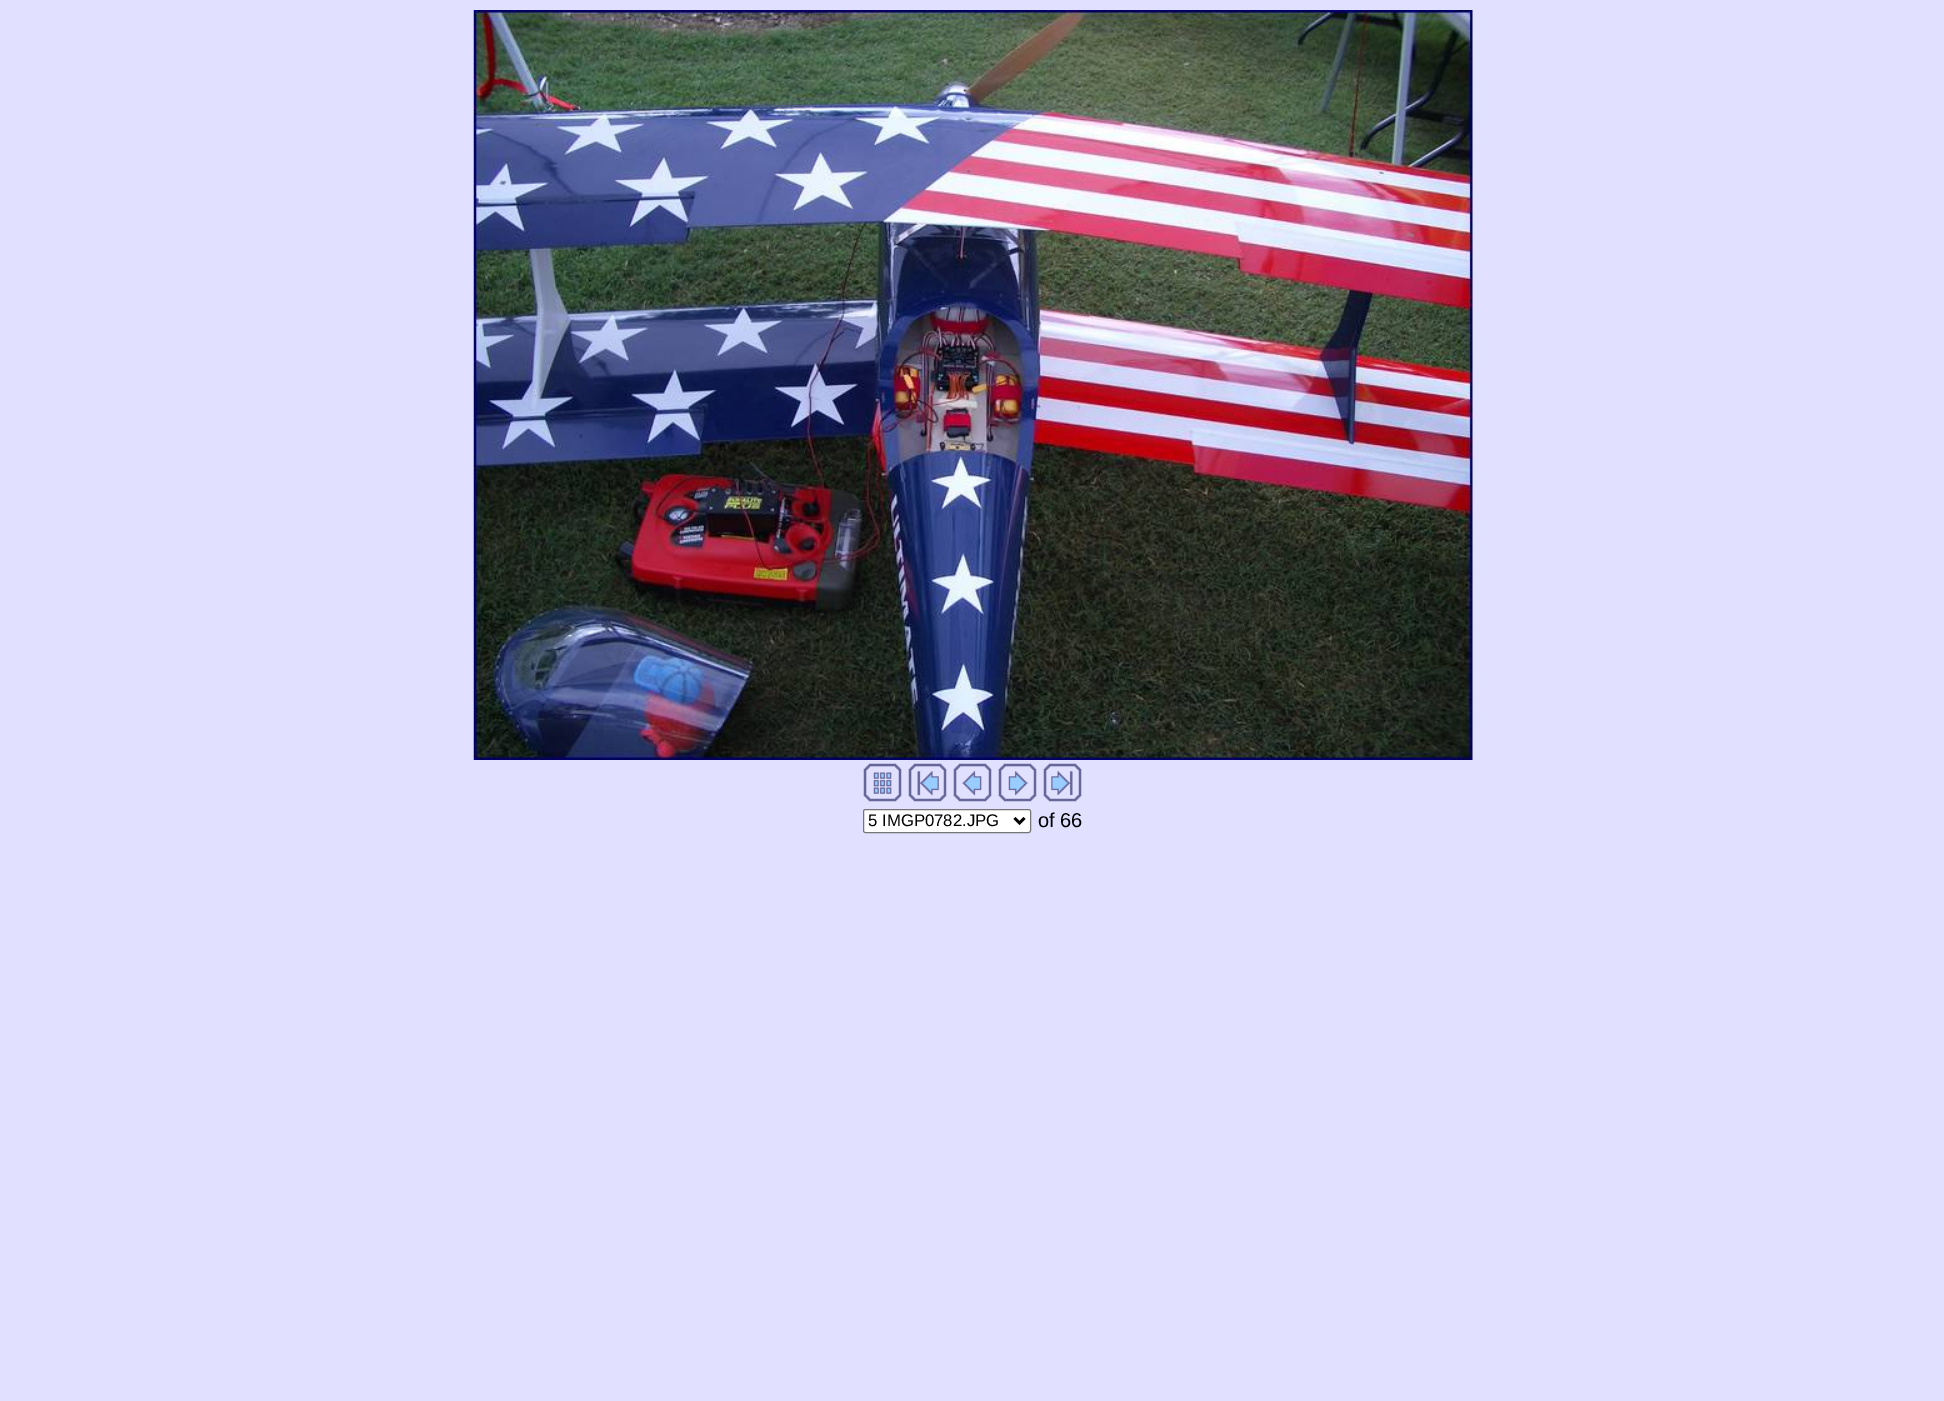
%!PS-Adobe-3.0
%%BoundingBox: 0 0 1944 1401
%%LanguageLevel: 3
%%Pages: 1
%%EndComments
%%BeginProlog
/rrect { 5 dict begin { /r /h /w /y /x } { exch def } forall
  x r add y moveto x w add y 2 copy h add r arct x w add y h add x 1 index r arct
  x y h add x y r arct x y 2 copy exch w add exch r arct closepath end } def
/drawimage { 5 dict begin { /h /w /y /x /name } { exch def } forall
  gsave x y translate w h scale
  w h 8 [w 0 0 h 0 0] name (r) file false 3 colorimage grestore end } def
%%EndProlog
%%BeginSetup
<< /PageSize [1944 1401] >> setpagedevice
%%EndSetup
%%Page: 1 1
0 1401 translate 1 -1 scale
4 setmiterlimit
0.882 0.882 1 setrgbcolor
0 0 1944 1401 rectfill
(images/1.raw) 473 10 1000 750 drawimage
(images/2.raw) 863 763 39 39 drawimage
(images/3.raw) 908 763 39 39 drawimage
(images/4.raw) 953 763 39 39 drawimage
(images/5.raw) 998 763 39 39 drawimage
(images/6.raw) 1043 763 39 39 drawimage
1 setgray
863.5 809.5 167 23 2 rrect gsave fill grestore
0.463 setgray
stroke
0 setgray
2.5 setlinewidth
newpath 1014.5 818 moveto 1019.5 823 lineto 1024.5 818 lineto stroke
/LiberationSans-Regular [16.75 0 0 -16.75 0 0] selectfont
868 826 moveto (5 IMGP0782.JPG) show
/LiberationSans-Regular [20 0 0 -20 0 0] selectfont
1038 827 moveto (of 66) show
showpage
%%EOF
